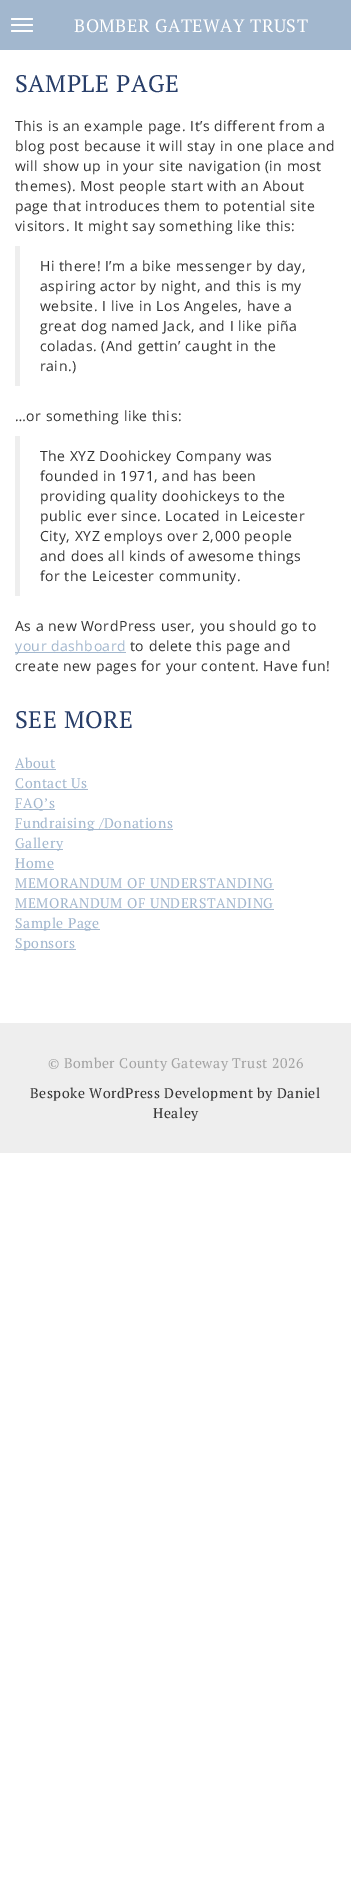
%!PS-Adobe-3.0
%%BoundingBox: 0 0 351 1890
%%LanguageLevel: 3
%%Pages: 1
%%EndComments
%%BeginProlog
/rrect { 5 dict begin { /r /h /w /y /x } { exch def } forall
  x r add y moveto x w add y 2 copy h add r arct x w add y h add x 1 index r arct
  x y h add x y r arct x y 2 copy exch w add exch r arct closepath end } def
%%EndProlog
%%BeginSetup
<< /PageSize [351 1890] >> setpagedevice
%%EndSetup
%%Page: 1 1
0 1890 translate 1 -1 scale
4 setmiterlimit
1 setgray
0 0 351 1890 rectfill
0.635 0.718 0.808 setrgbcolor
0 0 351 50 rectfill
1 setgray
11 18 22 2 1 rrect fill
11 24 22 2 1 rrect fill
11 30 22 2 1 rrect fill
0.933 setgray
15 246 5 140 rectfill
15 436 5 160 rectfill
0.635 0.718 0.808 setrgbcolor
15 652 111 1 rectfill
15 769 41 1 rectfill
15 789 73 1 rectfill
15 809 40 1 rectfill
15 829 158 1 rectfill
15 849 48 1 rectfill
15 869 39 1 rectfill
15 889 259 1 rectfill
15 909 259 1 rectfill
15 929 85 1 rectfill
15 949 61 1 rectfill
0.933 setgray
0 1023 351 130 rectfill
/PTSerif-Regular [18 0 0 -18 0 0] selectfont
1 setgray
74 32 moveto 0.5 0 (BOMBER GATEWAY TRUST) ashow
/PTSerif-Regular [24 0 0 -24 0 0] selectfont
0.157 0.243 0.412 setrgbcolor
15 92 moveto 0.5 0 (SAMPLE PAGE) ashow
/OpenSans-Regular [14 0 0 -14 0 0] selectfont
0.2 setgray
15 131 moveto 0.5 0 (This is an example page. It’s different from a) ashow
15 151 moveto 0.5 0 (blog post because it will stay in one place and) ashow
15 171 moveto 0.5 0 (will show up in your site navigation \(in most) ashow
15 191 moveto 0.5 0 (themes\). Most people start with an About) ashow
15 211 moveto 0.5 0 (page that introduces them to potential site) ashow
15 231 moveto 0.5 0 (visitors. It might say something like this:) ashow
40 271 moveto 0.5 0 (Hi there! I’m a bike messenger by day,) ashow
40 291 moveto 0.5 0 (aspiring actor by night, and this is my) ashow
40 311 moveto 0.5 0 (website. I live in Los Angeles, have a) ashow
40 331 moveto 0.5 0 (great dog named Jack, and I like piña) ashow
40 351 moveto 0.5 0 (coladas. \(And gettin’ caught in the) ashow
40 371 moveto 0.5 0 (rain.\)) ashow
15 421 moveto 0.5 0 (…or something like this:) ashow
40 461 moveto 0.5 0 (The XYZ Doohickey Company was) ashow
40 481 moveto 0.5 0 (founded in 1971, and has been) ashow
40 501 moveto 0.5 0 (providing quality doohickeys to the) ashow
40 521 moveto 0.5 0 (public ever since. Located in Leicester) ashow
40 541 moveto 0.5 0 (City, XYZ employs over 2,000 people) ashow
40 561 moveto 0.5 0 (and does all kinds of awesome things) ashow
40 581 moveto 0.5 0 (for the Leicester community.) ashow
15 631 moveto 0.5 0 (As a new WordPress user, you should go to) ashow
0.635 0.718 0.808 setrgbcolor
15 651 moveto 0.5 0 (your dashboard) ashow
0.2 setgray
130 651 moveto 0.5 0 (to delete this page and) ashow
15 671 moveto 0.5 0 (create new pages for your content. Have fun!) ashow
/PTSerif-Regular [24 0 0 -24 0 0] selectfont
0.157 0.243 0.412 setrgbcolor
15 728 moveto 0.5 0 (SEE MORE) ashow
/PTSerif-Regular [14 0 0 -14 0 0] selectfont
0.635 0.718 0.808 setrgbcolor
15 768 moveto 0.5 0 (About) ashow
15 788 moveto 0.5 0 (Contact Us) ashow
15 808 moveto 0.5 0 (FAQ’s) ashow
15 828 moveto 0.5 0 (Fundraising /Donations) ashow
15 848 moveto 0.5 0 (Gallery) ashow
15 868 moveto 0.5 0 (Home) ashow
15 888 moveto 0.5 0 (MEMORANDUM OF UNDERSTANDING) ashow
15 908 moveto 0.5 0 (MEMORANDUM OF UNDERSTANDING) ashow
15 928 moveto 0.5 0 (Sample Page) ashow
15 948 moveto 0.5 0 (Sponsors) ashow
0.635 setgray
48 1068 moveto 0.5 0 (© Bomber County Gateway Trust 2026) ashow
0.2 setgray
30 1098 moveto 0.5 0 (Bespoke WordPress Development by Daniel) ashow
153 1118 moveto 0.5 0 (Healey) ashow
showpage
%%EOF
